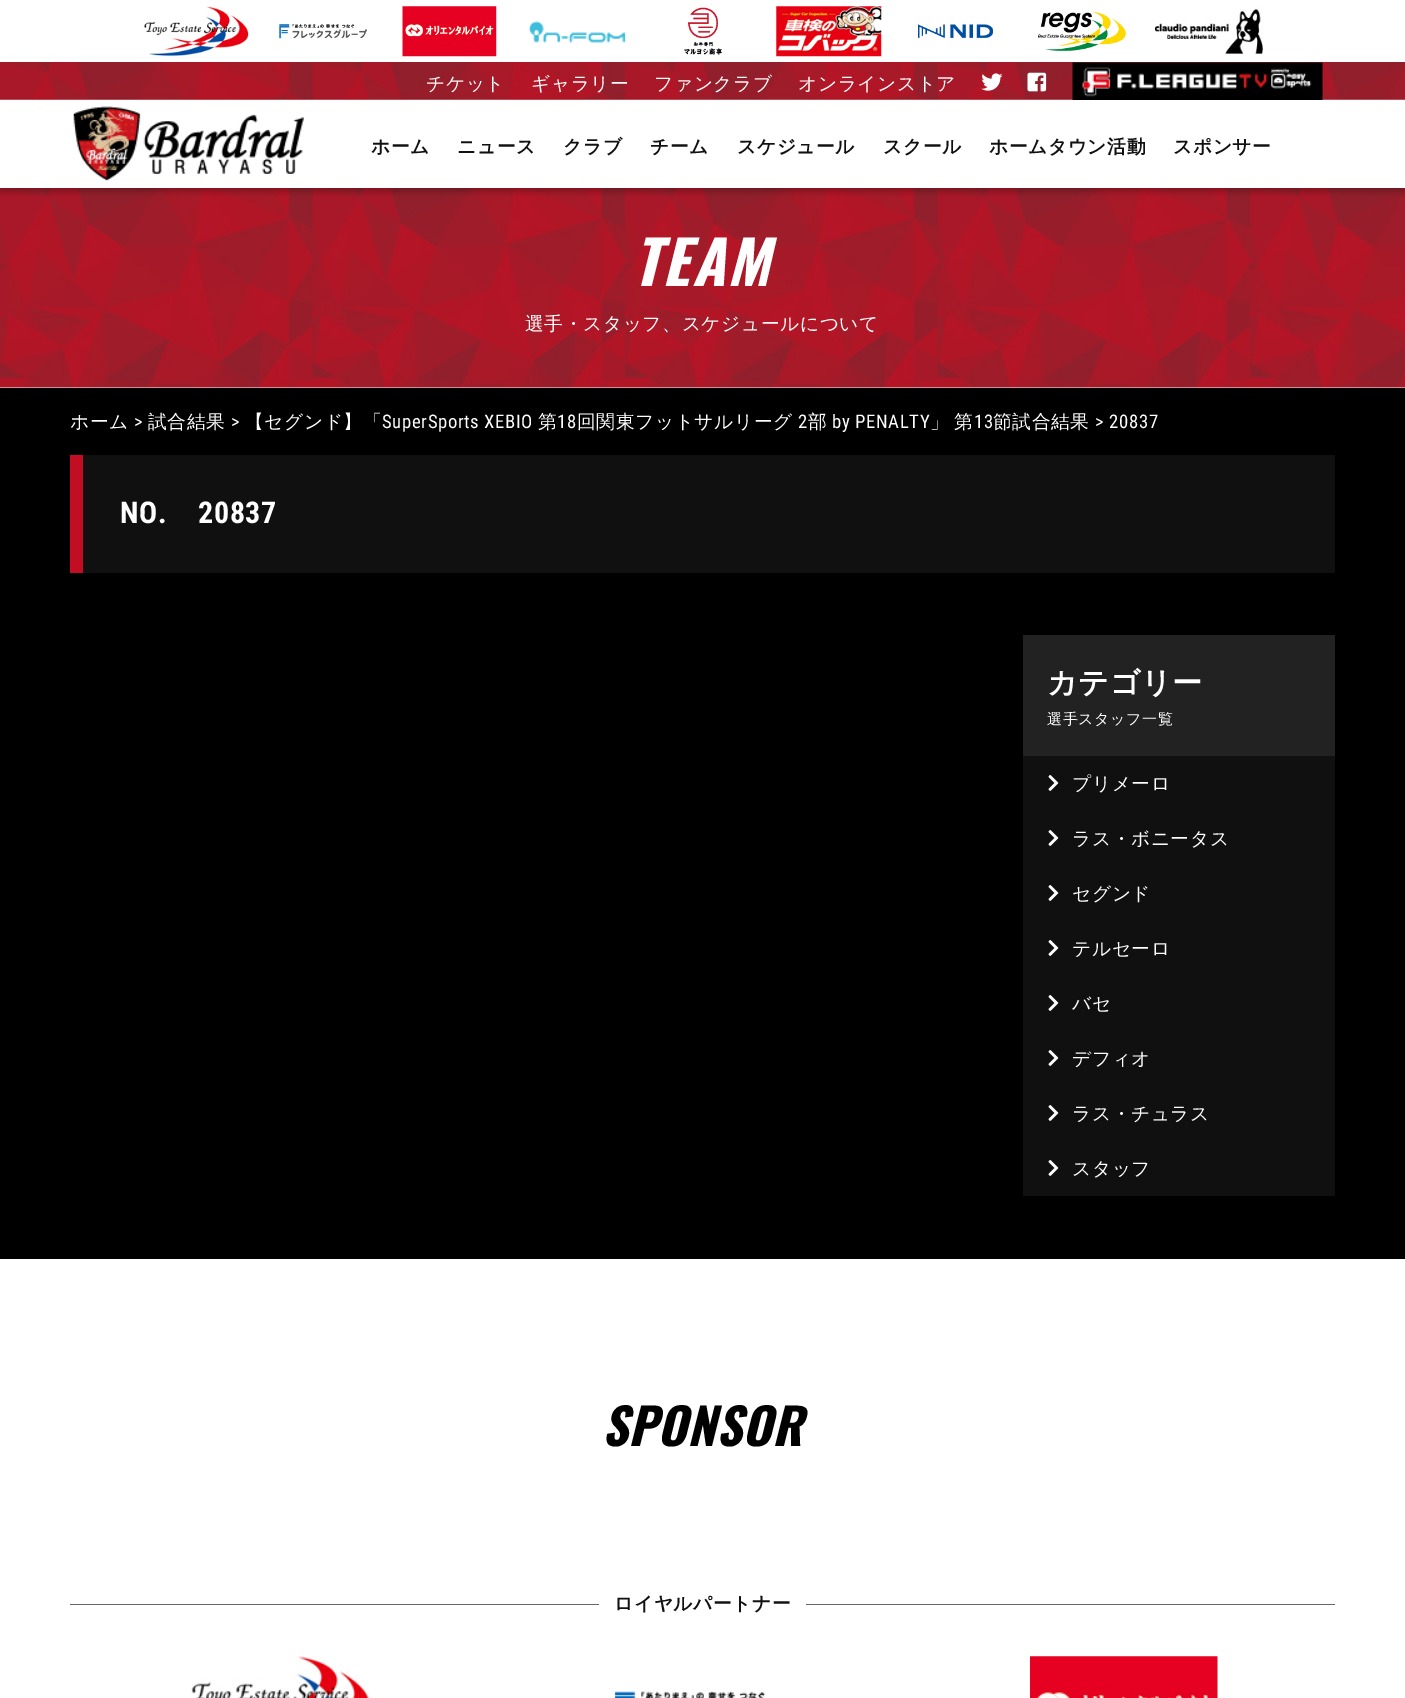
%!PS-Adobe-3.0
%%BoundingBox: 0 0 1405 1698
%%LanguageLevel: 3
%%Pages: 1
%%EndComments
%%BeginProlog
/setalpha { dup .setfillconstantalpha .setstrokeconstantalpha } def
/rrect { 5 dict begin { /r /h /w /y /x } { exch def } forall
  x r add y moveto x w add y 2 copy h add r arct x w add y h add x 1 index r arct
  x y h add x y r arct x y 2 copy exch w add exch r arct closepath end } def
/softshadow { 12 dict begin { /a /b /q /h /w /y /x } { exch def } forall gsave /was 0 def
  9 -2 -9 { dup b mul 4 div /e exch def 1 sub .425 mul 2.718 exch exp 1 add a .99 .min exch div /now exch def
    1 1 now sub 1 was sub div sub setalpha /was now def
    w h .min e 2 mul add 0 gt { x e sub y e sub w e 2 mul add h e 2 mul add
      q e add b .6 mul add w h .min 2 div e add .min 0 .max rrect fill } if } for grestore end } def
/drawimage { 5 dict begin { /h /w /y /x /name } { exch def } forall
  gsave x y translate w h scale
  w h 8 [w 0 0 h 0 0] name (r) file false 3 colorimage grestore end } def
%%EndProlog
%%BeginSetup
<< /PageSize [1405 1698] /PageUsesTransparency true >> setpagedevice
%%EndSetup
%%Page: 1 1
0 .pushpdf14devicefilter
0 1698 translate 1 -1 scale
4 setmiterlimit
1 setgray
0 0 1405 1698 rectfill
(images/1.raw) 143 6 106 51 drawimage
(images/2.raw) 279 24 88 15 drawimage
(images/3.raw) 402 6 95 51 drawimage
(images/4.raw) 528 21 98 22 drawimage
(images/5.raw) 684 7 39 48 drawimage
(images/6.raw) 776 6 106 51 drawimage
(images/7.raw) 918 24 75 14 drawimage
(images/8.raw) 1038 11 88 41 drawimage
(images/9.raw) 1154 7 109 47 drawimage
(images/10.raw) 0 62 1405 38 drawimage
(images/11.raw) 981 73 22 18 drawimage
(images/15.raw) 0 188 1405 200 drawimage
0 setgray
0 104 1405 87 0 4 0.3 softshadow
(images/12.raw) 1027 72 20 20 drawimage
(images/13.raw) 1072 62 251 38 drawimage
1 setgray
0 100 1405 88 rectfill
(images/14.raw) 73 106 231 75 drawimage
0 setgray
0 388 1405 871 rectfill
0.063 setgray
83 455 1252 118 rectfill
0.765 0.051 0.137 setrgbcolor
70 455 13 118 rectfill
0.133 setgray
1023 635 312 121 rectfill
0.063 setgray
1023 756 312 440 rectfill
(images/16.raw) 1048 775 11 16 drawimage
(images/16.raw) 1048 830 11 16 drawimage
(images/16.raw) 1048 885 11 16 drawimage
(images/16.raw) 1048 940 11 16 drawimage
(images/16.raw) 1048 995 11 16 drawimage
(images/16.raw) 1048 1050 11 16 drawimage
(images/16.raw) 1048 1105 11 16 drawimage
(images/16.raw) 1048 1160 11 16 drawimage
0.4 setgray
70 1604 529 1 rectfill
806 1604 529 1 rectfill
(images/17.raw) 191 1656 178 42 drawimage
(images/18.raw) 614 1691 152 7 drawimage
(images/19.raw) 1030 1656 188 42 drawimage
/WenQuanYiZenHei-Medium [18.75 0 0 -18.75 0 0] selectfont
1 setgray
426 90 moveto 0.6 0 (チケット) ashow
531 90 moveto 0.6 0 (ギャラリー) ashow
654 90 moveto 0.6 0 (ファンクラブ) ashow
798 90 moveto 0.6 0 (オンラインストア) ashow
/WenQuanYiZenHei-Bold [18.75 0 0 -18.75 0 0] selectfont
0.067 setgray
371 153 moveto 0.6 0 (ホーム) ashow
457 153 moveto 0.6 0 (ニュース) ashow
563 153 moveto 0.6 0 (クラブ) ashow
650 153 moveto 0.6 0 (チーム) ashow
737 153 moveto 0.6 0 (スケジュール) ashow
883 153 moveto 0.6 0 (スクール) ashow
989 153 moveto 0.6 0 (ホームタウン活動) ashow
1173 153 moveto 0.6 0 (スポンサー) ashow
/Oswald-BoldItalic [60 0 0 -60 0 0] selectfont
1 setgray
633 286 moveto 2.5 0 (TEAM) ashow
/WenQuanYiZenHei-Medium [18.75 0 0 -18.75 0 0] selectfont
525 330 moveto 0.6 0 (選手・スタッフ、スケジュールについて) ashow
70 428 moveto 0.6 0 (ホーム) ashow
/RobotoCondensed-Regular [18.75 0 0 -18.75 0 0] selectfont
134 428 moveto 0.6 0 (>) ashow
/WenQuanYiZenHei-Medium [18.75 0 0 -18.75 0 0] selectfont
148 428 moveto 0.6 0 (試合結果) ashow
/RobotoCondensed-Regular [18.75 0 0 -18.75 0 0] selectfont
231 428 moveto 0.6 0 (>) ashow
/WenQuanYiZenHei-Medium [18.75 0 0 -18.75 0 0] selectfont
245 428 moveto 0.6 0 (【セグンド】「) ashow
/RobotoCondensed-Regular [18.75 0 0 -18.75 0 0] selectfont
382 428 moveto 0.6 0 (SuperSports XEBIO) ashow
/WenQuanYiZenHei-Medium [18.75 0 0 -18.75 0 0] selectfont
538 428 moveto 0.6 0 (第) ashow
/RobotoCondensed-Regular [18.75 0 0 -18.75 0 0] selectfont
557 428 moveto 0.6 0 (18) ashow
/WenQuanYiZenHei-Medium [18.75 0 0 -18.75 0 0] selectfont
577 428 moveto 0.6 0 (回関東フットサルリーグ) ashow
/RobotoCondensed-Regular [18.75 0 0 -18.75 0 0] selectfont
798 428 moveto 0.6 0 (2) ashow
/WenQuanYiZenHei-Medium [18.75 0 0 -18.75 0 0] selectfont
808 428 moveto 0.6 0 (部) ashow
/RobotoCondensed-Regular [18.75 0 0 -18.75 0 0] selectfont
832 428 moveto 0.6 0 (by PENALTY) ashow
/WenQuanYiZenHei-Medium [18.75 0 0 -18.75 0 0] selectfont
930 428 moveto 0.6 0 (」) ashow
954 428 moveto 0.6 0 (第) ashow
/RobotoCondensed-Regular [18.75 0 0 -18.75 0 0] selectfont
974 428 moveto 0.6 0 (13) ashow
/WenQuanYiZenHei-Medium [18.75 0 0 -18.75 0 0] selectfont
993 428 moveto 0.6 0 (節試合結果) ashow
/RobotoCondensed-Regular [18.75 0 0 -18.75 0 0] selectfont
1095 428 moveto 0.6 0 (> 20837) ashow
/RobotoCondensed-Bold [30 0 0 -30 0 0] selectfont
120 523 moveto 0.6 0 (NO.) ashow
198 523 moveto 0.6 0 (20837) ashow
/WenQuanYiZenHei-Bold [30 0 0 -30 0 0] selectfont
1047 693 moveto 0.6 0 (カテゴリー) ashow
/WenQuanYiZenHei-Medium [15 0 0 -15 0 0] selectfont
1047 724 moveto 0.6 0 (選手スタッフ一覧) ashow
/WenQuanYiZenHei-Medium [18.75 0 0 -18.75 0 0] selectfont
1072 790 moveto 0.6 0 (プリメーロ) ashow
1072 845 moveto 0.6 0 (ラス・ボニータス) ashow
1072 900 moveto 0.6 0 (セグンド) ashow
1072 955 moveto 0.6 0 (テルセーロ) ashow
1072 1010 moveto 0.6 0 (バセ) ashow
1072 1065 moveto 0.6 0 (デフィオ) ashow
1072 1120 moveto 0.6 0 (ラス・チュラス) ashow
1072 1175 moveto 0.6 0 (スタッフ) ashow
/Oswald-BoldItalic [50 0 0 -50 0 0] selectfont
0 setgray
602 1446 moveto 0.6 0 (SPONSOR) ashow
/WenQuanYiZenHei-Bold [18.75 0 0 -18.75 0 0] selectfont
0.067 setgray
614 1610 moveto 0.6 0 (ロイヤルパートナー) ashow
.poppdf14devicefilter showpage
%%EOF
